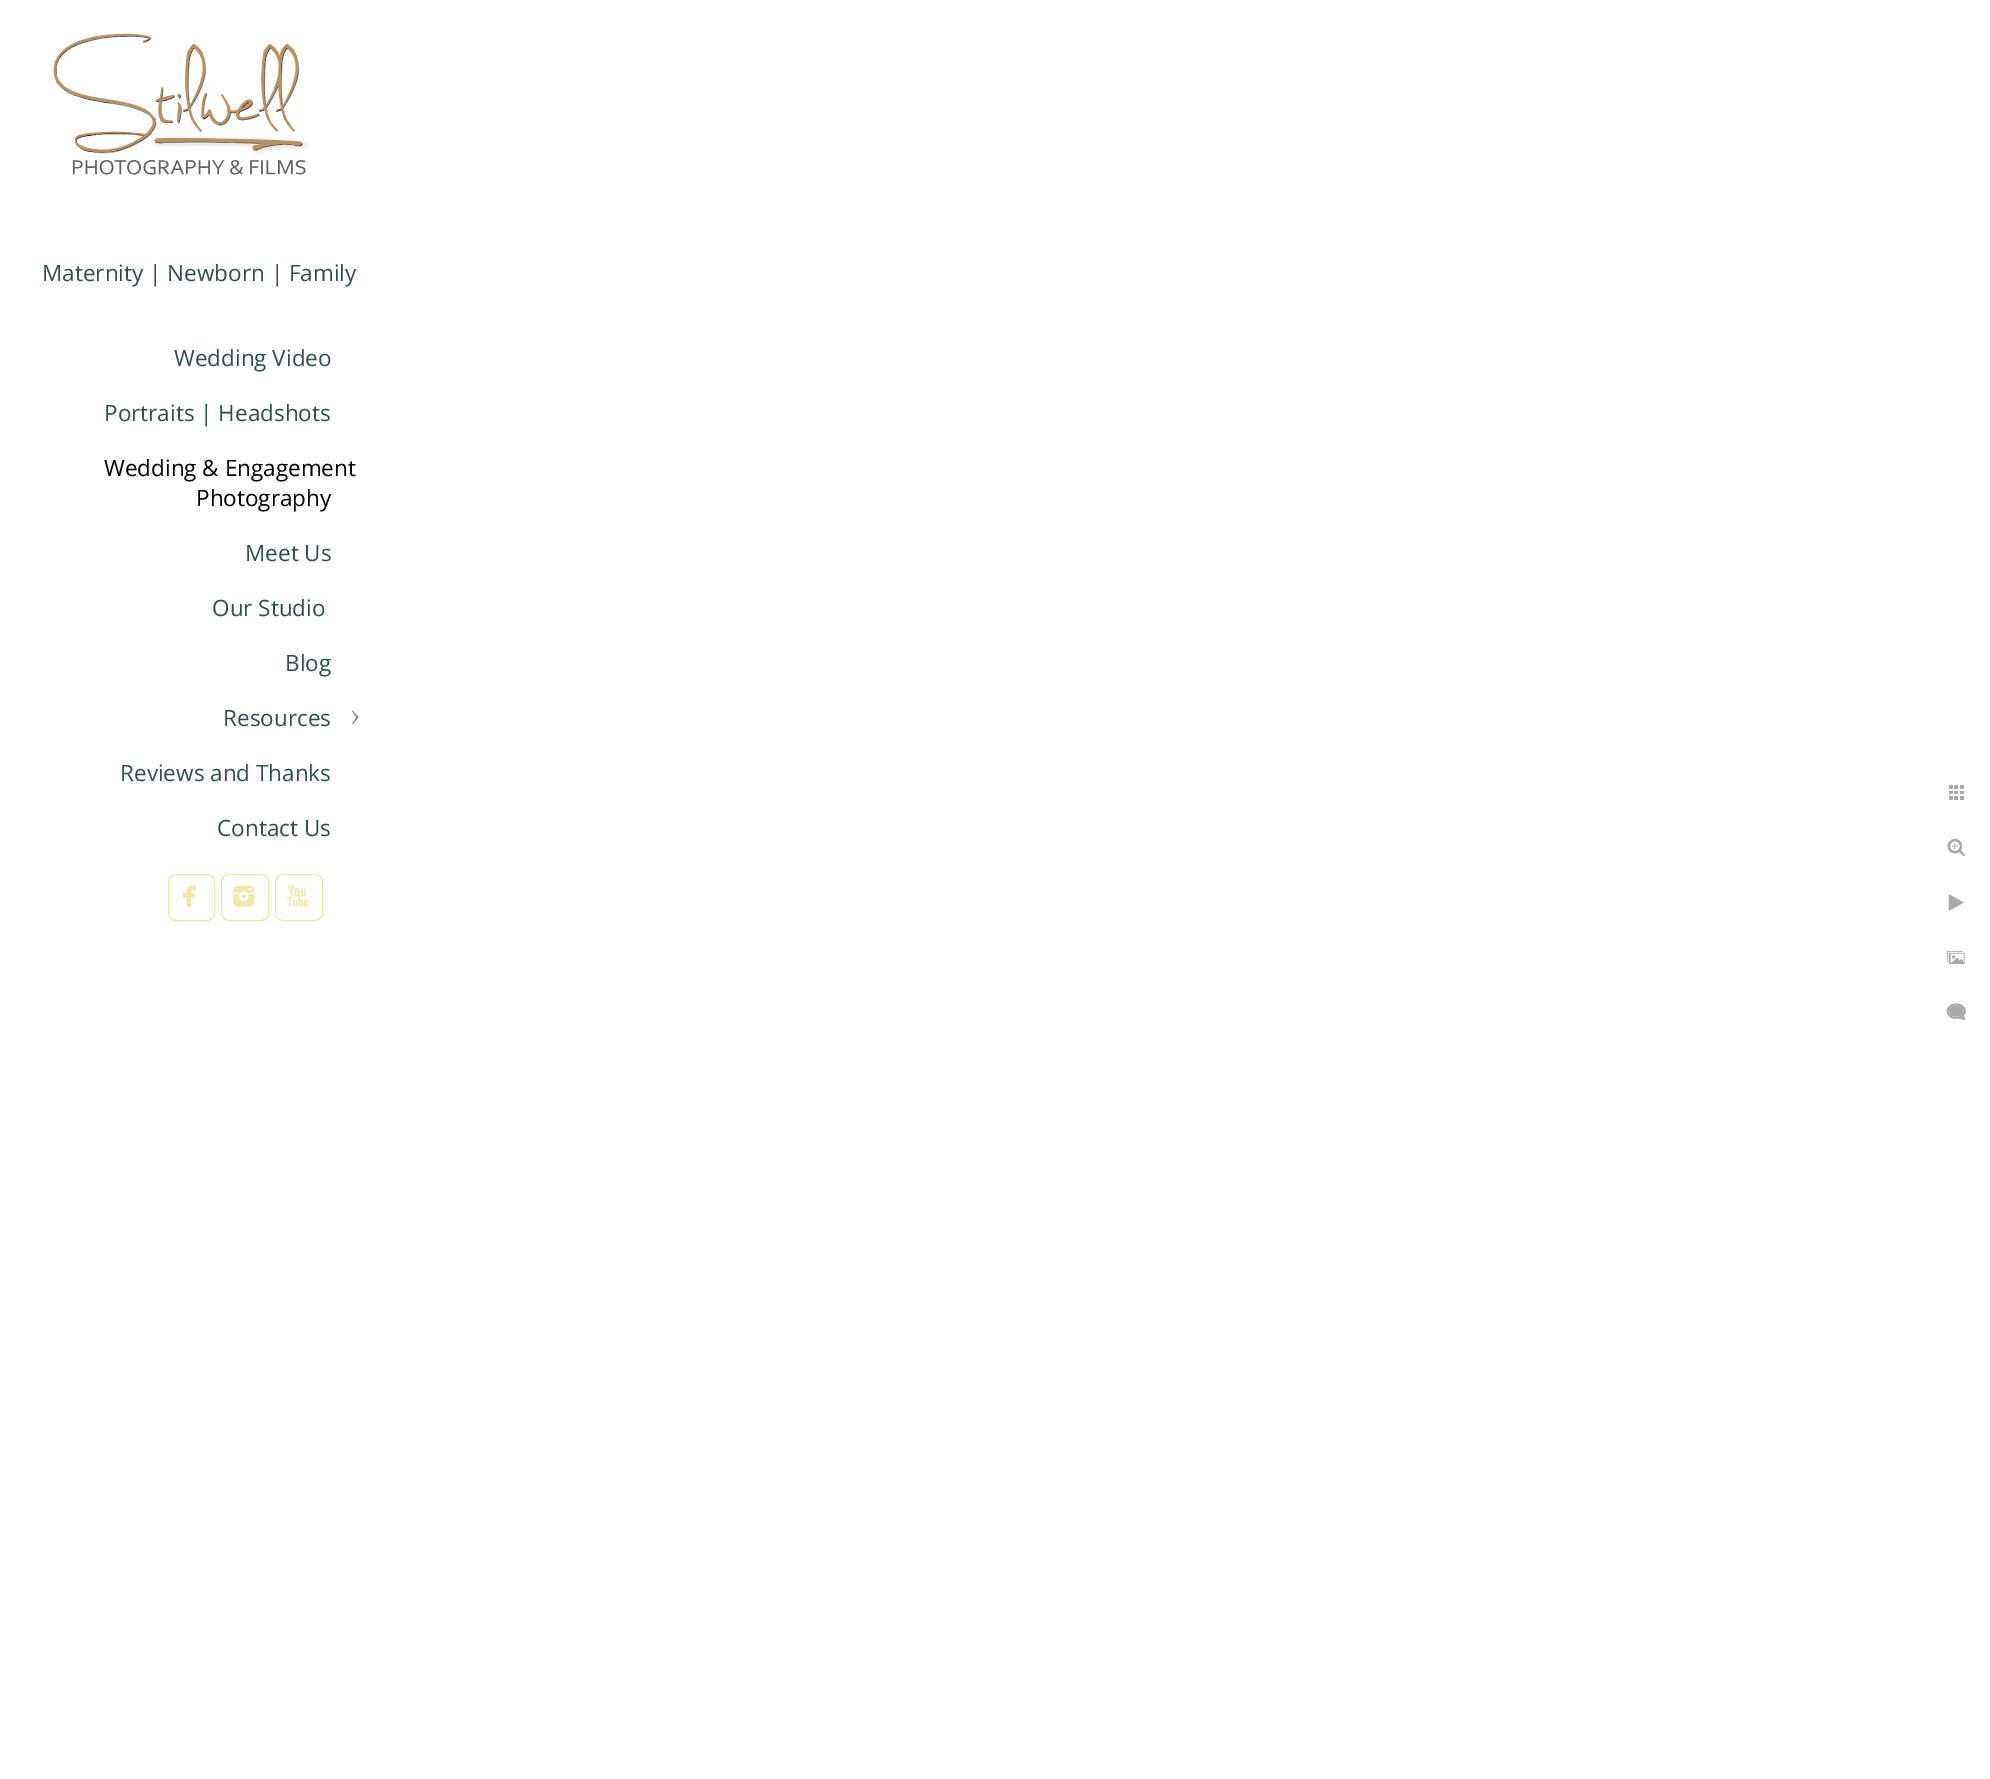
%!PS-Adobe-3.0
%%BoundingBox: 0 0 1990 1779
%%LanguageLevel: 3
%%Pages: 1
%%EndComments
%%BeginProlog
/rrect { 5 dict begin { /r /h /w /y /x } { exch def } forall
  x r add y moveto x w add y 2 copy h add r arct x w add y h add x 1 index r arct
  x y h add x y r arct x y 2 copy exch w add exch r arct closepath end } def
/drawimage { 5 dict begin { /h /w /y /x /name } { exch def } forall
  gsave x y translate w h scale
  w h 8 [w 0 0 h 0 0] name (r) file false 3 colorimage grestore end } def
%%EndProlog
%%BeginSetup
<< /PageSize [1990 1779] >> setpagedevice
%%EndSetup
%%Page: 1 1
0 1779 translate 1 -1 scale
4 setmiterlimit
1 setgray
0 0 1990 1779 rectfill
(images/1.raw) 53 33 256 142 drawimage
(images/2.raw) 351 710 8 15 drawimage
0.933 0.91 0.667 setrgbcolor
168.5 874.5 46 46 7.5 rrect stroke
(images/3.raw) 183 885 13 22 drawimage
221.5 874.5 47 46 7.5 rrect stroke
(images/4.raw) 233 885 22 22 drawimage
275.5 874.5 47 46 7.5 rrect stroke
(images/5.raw) 287 885 21 22 drawimage
(images/6.raw) 1949 785 15 15 drawimage
(images/7.raw) 1947 838 18 19 drawimage
(images/8.raw) 1948 894 16 17 drawimage
(images/9.raw) 1946 950 19 15 drawimage
(images/10.raw) 1946 1003 20 18 drawimage
/OpenSans-Regular [22.5 0 0 -22.5 0 0] selectfont
0.184 0.31 0.31 setrgbcolor
42 281 moveto (Maternity | Newborn | Family) show
174 366 moveto (Wedding Video) show
104 421 moveto (Portraits | Headshots) show
0 setgray
104 476 moveto (Wedding & Engagement) show
196 506 moveto (Photography) show
0.184 0.31 0.31 setrgbcolor
245 561 moveto (Meet Us) show
212 616 moveto (Our Studio) show
285 671 moveto (Blog) show
223 726 moveto (Resources) show
120 781 moveto (Reviews and Thanks) show
217 836 moveto (Contact Us) show
showpage
%%EOF
